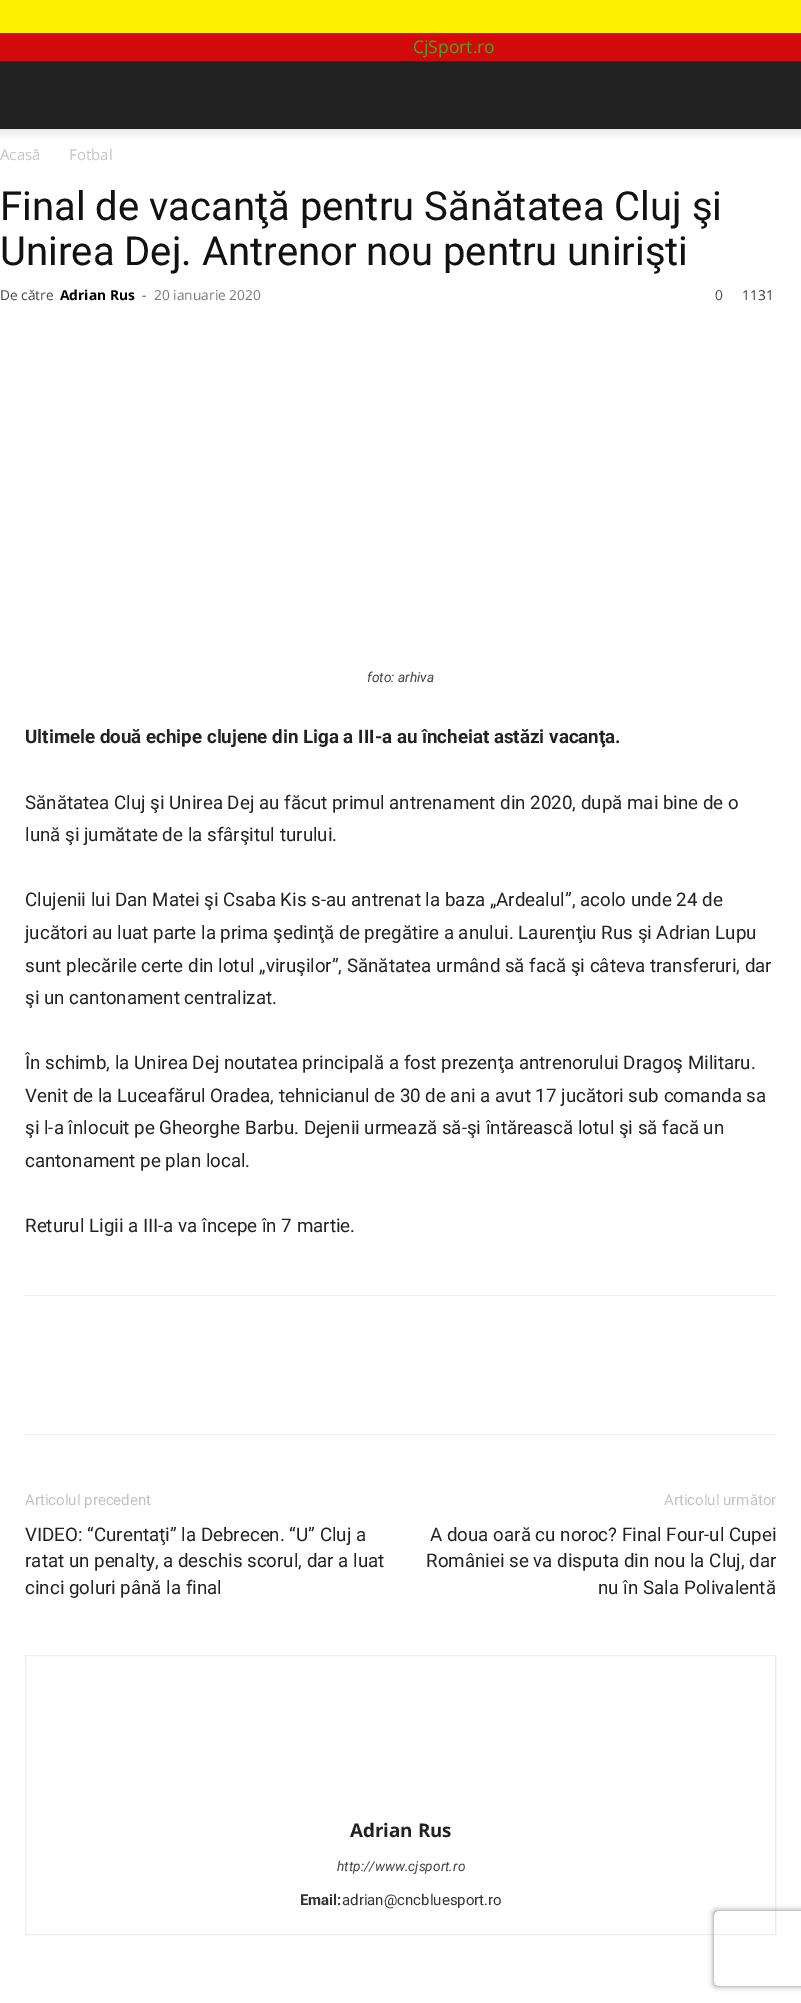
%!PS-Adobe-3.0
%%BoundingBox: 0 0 801 2003
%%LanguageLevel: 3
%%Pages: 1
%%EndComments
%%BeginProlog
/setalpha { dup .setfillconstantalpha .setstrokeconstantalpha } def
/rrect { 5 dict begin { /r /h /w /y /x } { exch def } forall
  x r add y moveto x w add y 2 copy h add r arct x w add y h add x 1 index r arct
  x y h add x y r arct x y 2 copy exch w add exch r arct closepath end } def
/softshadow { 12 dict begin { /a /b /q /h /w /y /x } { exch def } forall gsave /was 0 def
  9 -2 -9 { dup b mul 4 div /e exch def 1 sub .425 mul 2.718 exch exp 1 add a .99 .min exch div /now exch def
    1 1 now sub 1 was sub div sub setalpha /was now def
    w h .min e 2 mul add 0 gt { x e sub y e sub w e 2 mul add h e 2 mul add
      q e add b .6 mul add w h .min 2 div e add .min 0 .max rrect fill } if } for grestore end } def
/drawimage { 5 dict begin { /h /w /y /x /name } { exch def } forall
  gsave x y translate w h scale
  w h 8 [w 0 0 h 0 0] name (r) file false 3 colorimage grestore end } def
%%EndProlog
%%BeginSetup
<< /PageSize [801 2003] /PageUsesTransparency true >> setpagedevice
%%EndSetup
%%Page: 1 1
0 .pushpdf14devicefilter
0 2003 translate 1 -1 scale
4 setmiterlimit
1 setgray
0 0 801 2003 rectfill
1 0.941 0 setrgbcolor
0 0 801 33 rectfill
0.827 0.039 0.043 setrgbcolor
0 33 801 28 rectfill
0.133 setgray
0 61 801 68 rectfill
(images/1.raw) 0 129 801 10 drawimage
0.929 setgray
25 1295 751 1 rectfill
25 1434 751 1 rectfill
25.5 1655.5 750 279 rectstroke
gsave
newpath 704 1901 moveto 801 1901 lineto 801 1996 lineto 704 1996 lineto closepath 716.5 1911 moveto 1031.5 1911 lineto 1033 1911 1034 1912 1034 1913.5 curveto 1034 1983.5 lineto 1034 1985 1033 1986 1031.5 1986 curveto 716.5 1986 lineto 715 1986 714 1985 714 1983.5 curveto 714 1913.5 lineto 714 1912 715 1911 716.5 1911 curveto closepath eoclip newpath
0.502 setgray
714 1911 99 75 2.5 3 1 softshadow
grestore
/OpenSans-Regular [17.5 0 0 -17.5 0 0] selectfont
0.278 0.647 0.133 setrgbcolor
413 53 moveto (CjSport.ro) show
/OpenSans-Regular [15 0 0 -15 0 0] selectfont
0.765 setgray
0 160 moveto (Acasă) show
69 160 moveto (Fotbal) show
/Roboto-Regular [40 0 0 -40 0 0] selectfont
0.067 setgray
0 220 moveto (Final de vacanţă pentru Sănătatea Cluj şi) show
0 265 moveto (Unirea Dej. Antrenor nou pentru unirişti) show
/OpenSans-Regular [13.75 0 0 -13.75 0 0] selectfont
0.267 setgray
0 300 moveto (De către) show
/OpenSans-Bold [13.75 0 0 -13.75 0 0] selectfont
0 setgray
60 300 moveto (Adrian Rus) show
/OpenSans-Regular [13.75 0 0 -13.75 0 0] selectfont
0.267 setgray
142 300 moveto (-) show
0.463 setgray
154 300 moveto (20 ianuarie 2020) show
0.267 setgray
715 300 moveto (0) show
0.2 setgray
742 300 moveto (1131) show
/Roboto-Italic [13.75 0 0 -13.75 0 0] selectfont
0.267 setgray
367 682 moveto (foto: arhiva) show
/Roboto-Bold [18.75 0 0 -18.75 0 0] selectfont
0.133 setgray
25 743 moveto (Ultimele două echipe clujene din Liga a III-a au încheiat astăzi vacanţa.) show
/Roboto-Regular [18.75 0 0 -18.75 0 0] selectfont
25 809 moveto (Sănătatea Cluj şi Unirea Dej au făcut primul antrenament din 2020, după mai bine de o) show
25 841 moveto (lună şi jumătate de la sfârşitul turului.) show
25 906 moveto (Clujenii lui Dan Matei şi Csaba Kis s-au antrenat la baza „Ardealul”, acolo unde 24 de) show
25 939 moveto (jucători au luat parte la prima şedinţă de pregătire a anului. Laurenţiu Rus şi Adrian Lupu) show
25 972 moveto (sunt plecările certe din lotul „viruşilor”, Sănătatea urmând să facă şi câteva transferuri, dar) show
25 1004 moveto (şi un cantonament centralizat.) show
25 1069 moveto (În schimb, la Unirea Dej noutatea principală a fost prezenţa antrenorului Dragoş Militaru.) show
25 1102 moveto (Venit de la Luceafărul Oradea, tehnicianul de 30 de ani a avut 17 jucători sub comanda sa) show
25 1134 moveto (şi l-a înlocuit pe Gheorghe Barbu. Dejenii urmează să-şi întărească lotul şi să facă un) show
25 1167 moveto (cantonament pe plan local.) show
25 1232 moveto (Returul Ligii a III-a va începe în 7 martie.) show
/Roboto-Regular [15 0 0 -15 0 0] selectfont
0.765 setgray
25 1505 moveto (Articolul precedent) show
/Roboto-Regular [18.75 0 0 -18.75 0 0] selectfont
0.133 setgray
25 1541 moveto (VIDEO: “Curentaţi” la Debrecen. “U” Cluj a) show
25 1567 moveto (ratat un penalty, a deschis scorul, dar a luat) show
25 1594 moveto (cinci goluri până la final) show
/Roboto-Regular [15 0 0 -15 0 0] selectfont
0.765 setgray
664 1505 moveto (Articolul următor) show
/Roboto-Regular [18.75 0 0 -18.75 0 0] selectfont
0.133 setgray
430 1541 moveto (A doua oară cu noroc? Final Four-ul Cupei) show
426 1567 moveto (României se va disputa din nou la Cluj, dar) show
598 1594 moveto (nu în Sala Polivalentă) show
/OpenSans-Bold [18.75 0 0 -18.75 0 0] selectfont
350 1837 moveto (Adrian Rus) show
/Roboto-Italic [13.75 0 0 -13.75 0 0] selectfont
0.267 setgray
337 1871 moveto (http://www.cjsport.ro) show
/Roboto-Bold [15 0 0 -15 0 0] selectfont
0.2 setgray
300 1905 moveto (Email:) show
/Roboto-Regular [15 0 0 -15 0 0] selectfont
342 1905 moveto (adrian@cncbluesport.ro) show
.poppdf14devicefilter showpage
%%EOF
